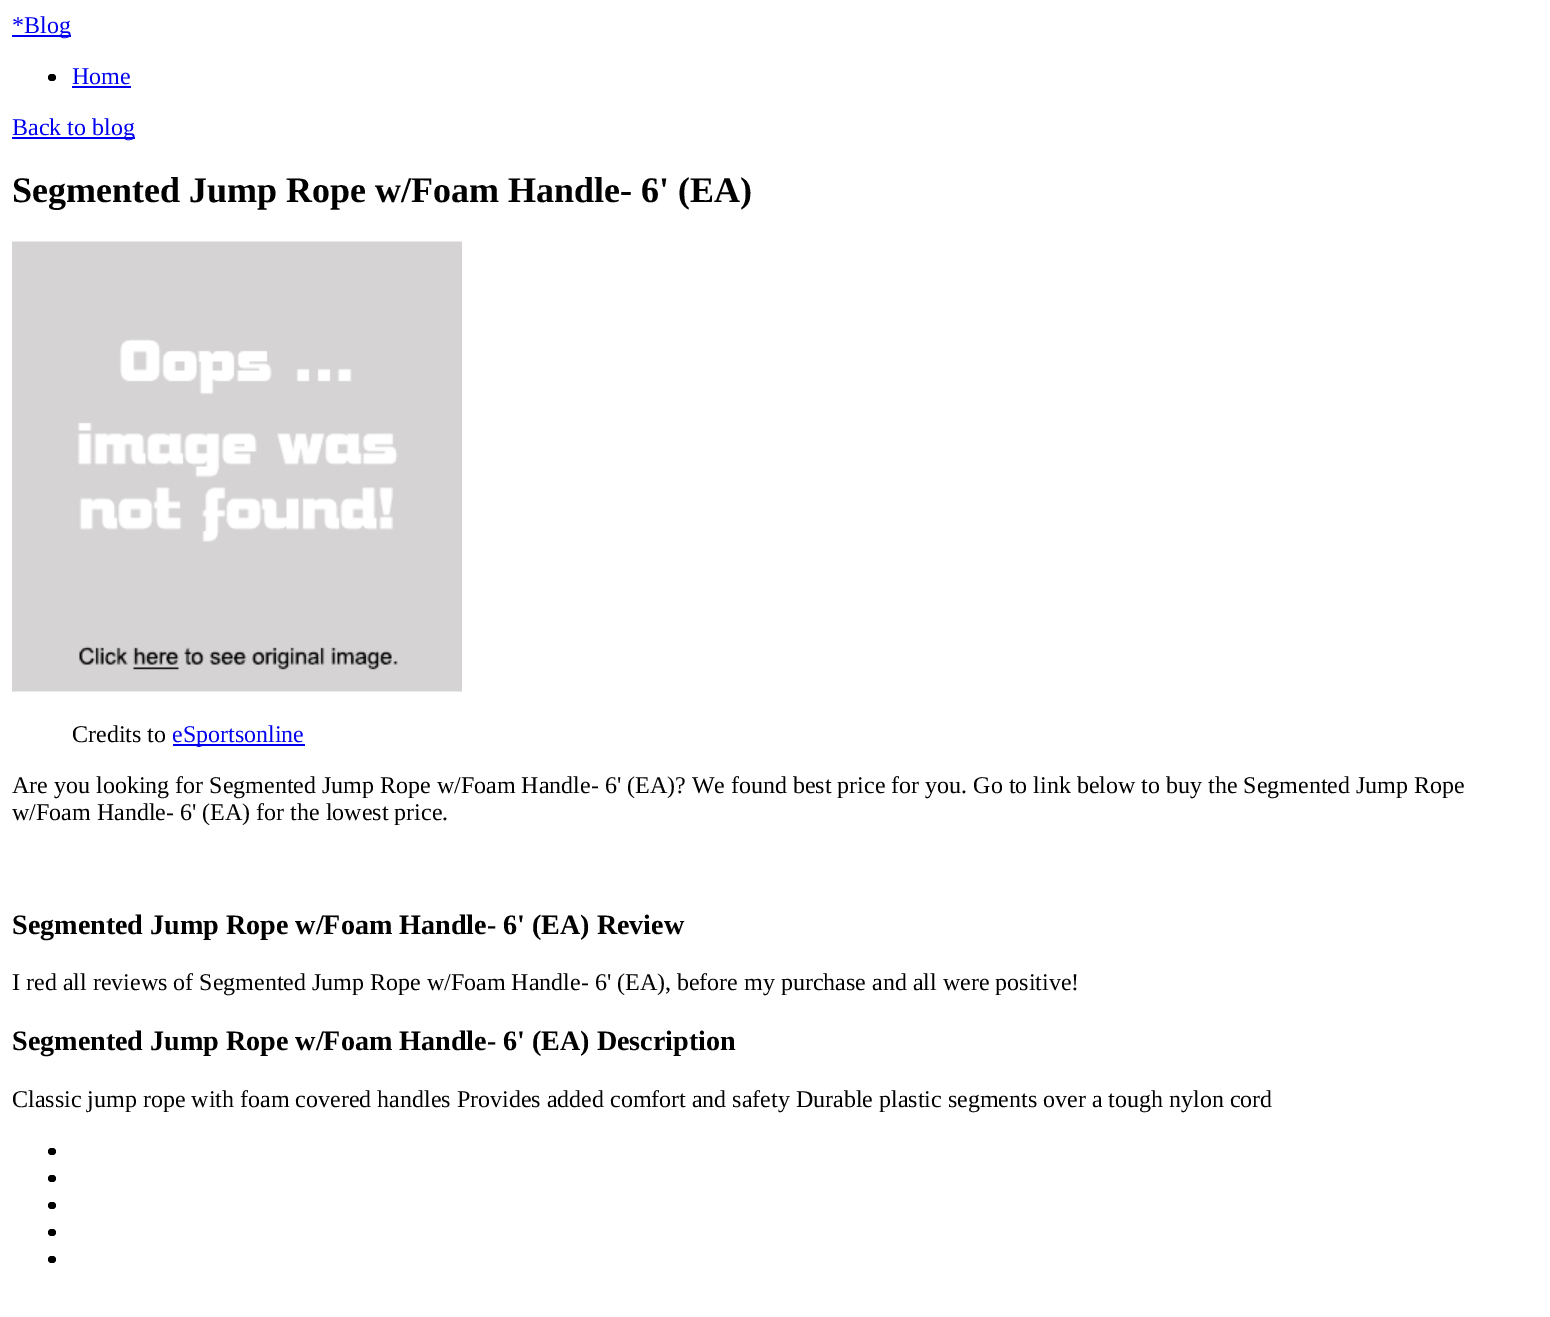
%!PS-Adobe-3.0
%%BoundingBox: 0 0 1550 1317
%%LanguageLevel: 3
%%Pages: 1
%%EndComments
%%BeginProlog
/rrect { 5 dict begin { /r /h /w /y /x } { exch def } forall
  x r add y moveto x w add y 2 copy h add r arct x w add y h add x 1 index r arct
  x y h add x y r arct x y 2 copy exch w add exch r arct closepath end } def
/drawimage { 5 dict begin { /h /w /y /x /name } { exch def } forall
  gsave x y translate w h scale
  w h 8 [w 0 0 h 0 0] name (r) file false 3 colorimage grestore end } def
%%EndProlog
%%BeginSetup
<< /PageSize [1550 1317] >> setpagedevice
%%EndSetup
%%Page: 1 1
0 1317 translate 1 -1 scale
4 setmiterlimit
1 setgray
0 0 1550 1317 rectfill
0 0 0.933 setrgbcolor
12 35 59 2 rectfill
0 setgray
48 74 8 7 3.5 rrect fill
0 0 0.933 setrgbcolor
72 86 59 2 rectfill
12 137 123 2 rectfill
(images/1.raw) 12 241 450 451 drawimage
173 744 132 2 rectfill
0 setgray
48 1148 8 7 3.5 rrect fill
48 1175 8 7 3.5 rrect fill
48 1202 8 7 3.5 rrect fill
48 1229 8 7 3.5 rrect fill
48 1256 8 7 3.5 rrect fill
/LiberationSerif-Regular [24 0 0 -24 0 0] selectfont
0 0 0.933 setrgbcolor
12 33 moveto (*Blog) show
72 84 moveto (Home) show
12 135 moveto (Back to blog) show
/LiberationSerif-Bold [36 0 0 -36 0 0] selectfont
0 setgray
12 202 moveto (Segmented Jump Rope w/Foam Handle- 6' \(EA\)) show
/LiberationSerif-Regular [24 0 0 -24 0 0] selectfont
72 742 moveto (Credits to) show
0 0 0.933 setrgbcolor
172 742 moveto (eSportsonline) show
0 setgray
12 793 moveto (Are you looking for Segmented Jump Rope w/Foam Handle- 6' \(EA\)? We found best price for you. Go to link below to buy the Segmented Jump Rope) show
12 820 moveto (w/Foam Handle- 6' \(EA\) for the lowest price.) show
/LiberationSerif-Bold [28.1 0 0 -28.1 0 0] selectfont
12 934 moveto (Segmented Jump Rope w/Foam Handle- 6' \(EA\) Review) show
/LiberationSerif-Regular [24 0 0 -24 0 0] selectfont
12 990 moveto (I red all reviews of Segmented Jump Rope w/Foam Handle- 6' \(EA\), before my purchase and all were positive!) show
/LiberationSerif-Bold [28.1 0 0 -28.1 0 0] selectfont
12 1050 moveto (Segmented Jump Rope w/Foam Handle- 6' \(EA\) Description) show
/LiberationSerif-Regular [24 0 0 -24 0 0] selectfont
12 1107 moveto (Classic jump rope with foam covered handles Provides added comfort and safety Durable plastic segments over a tough nylon cord) show
showpage
%%EOF
